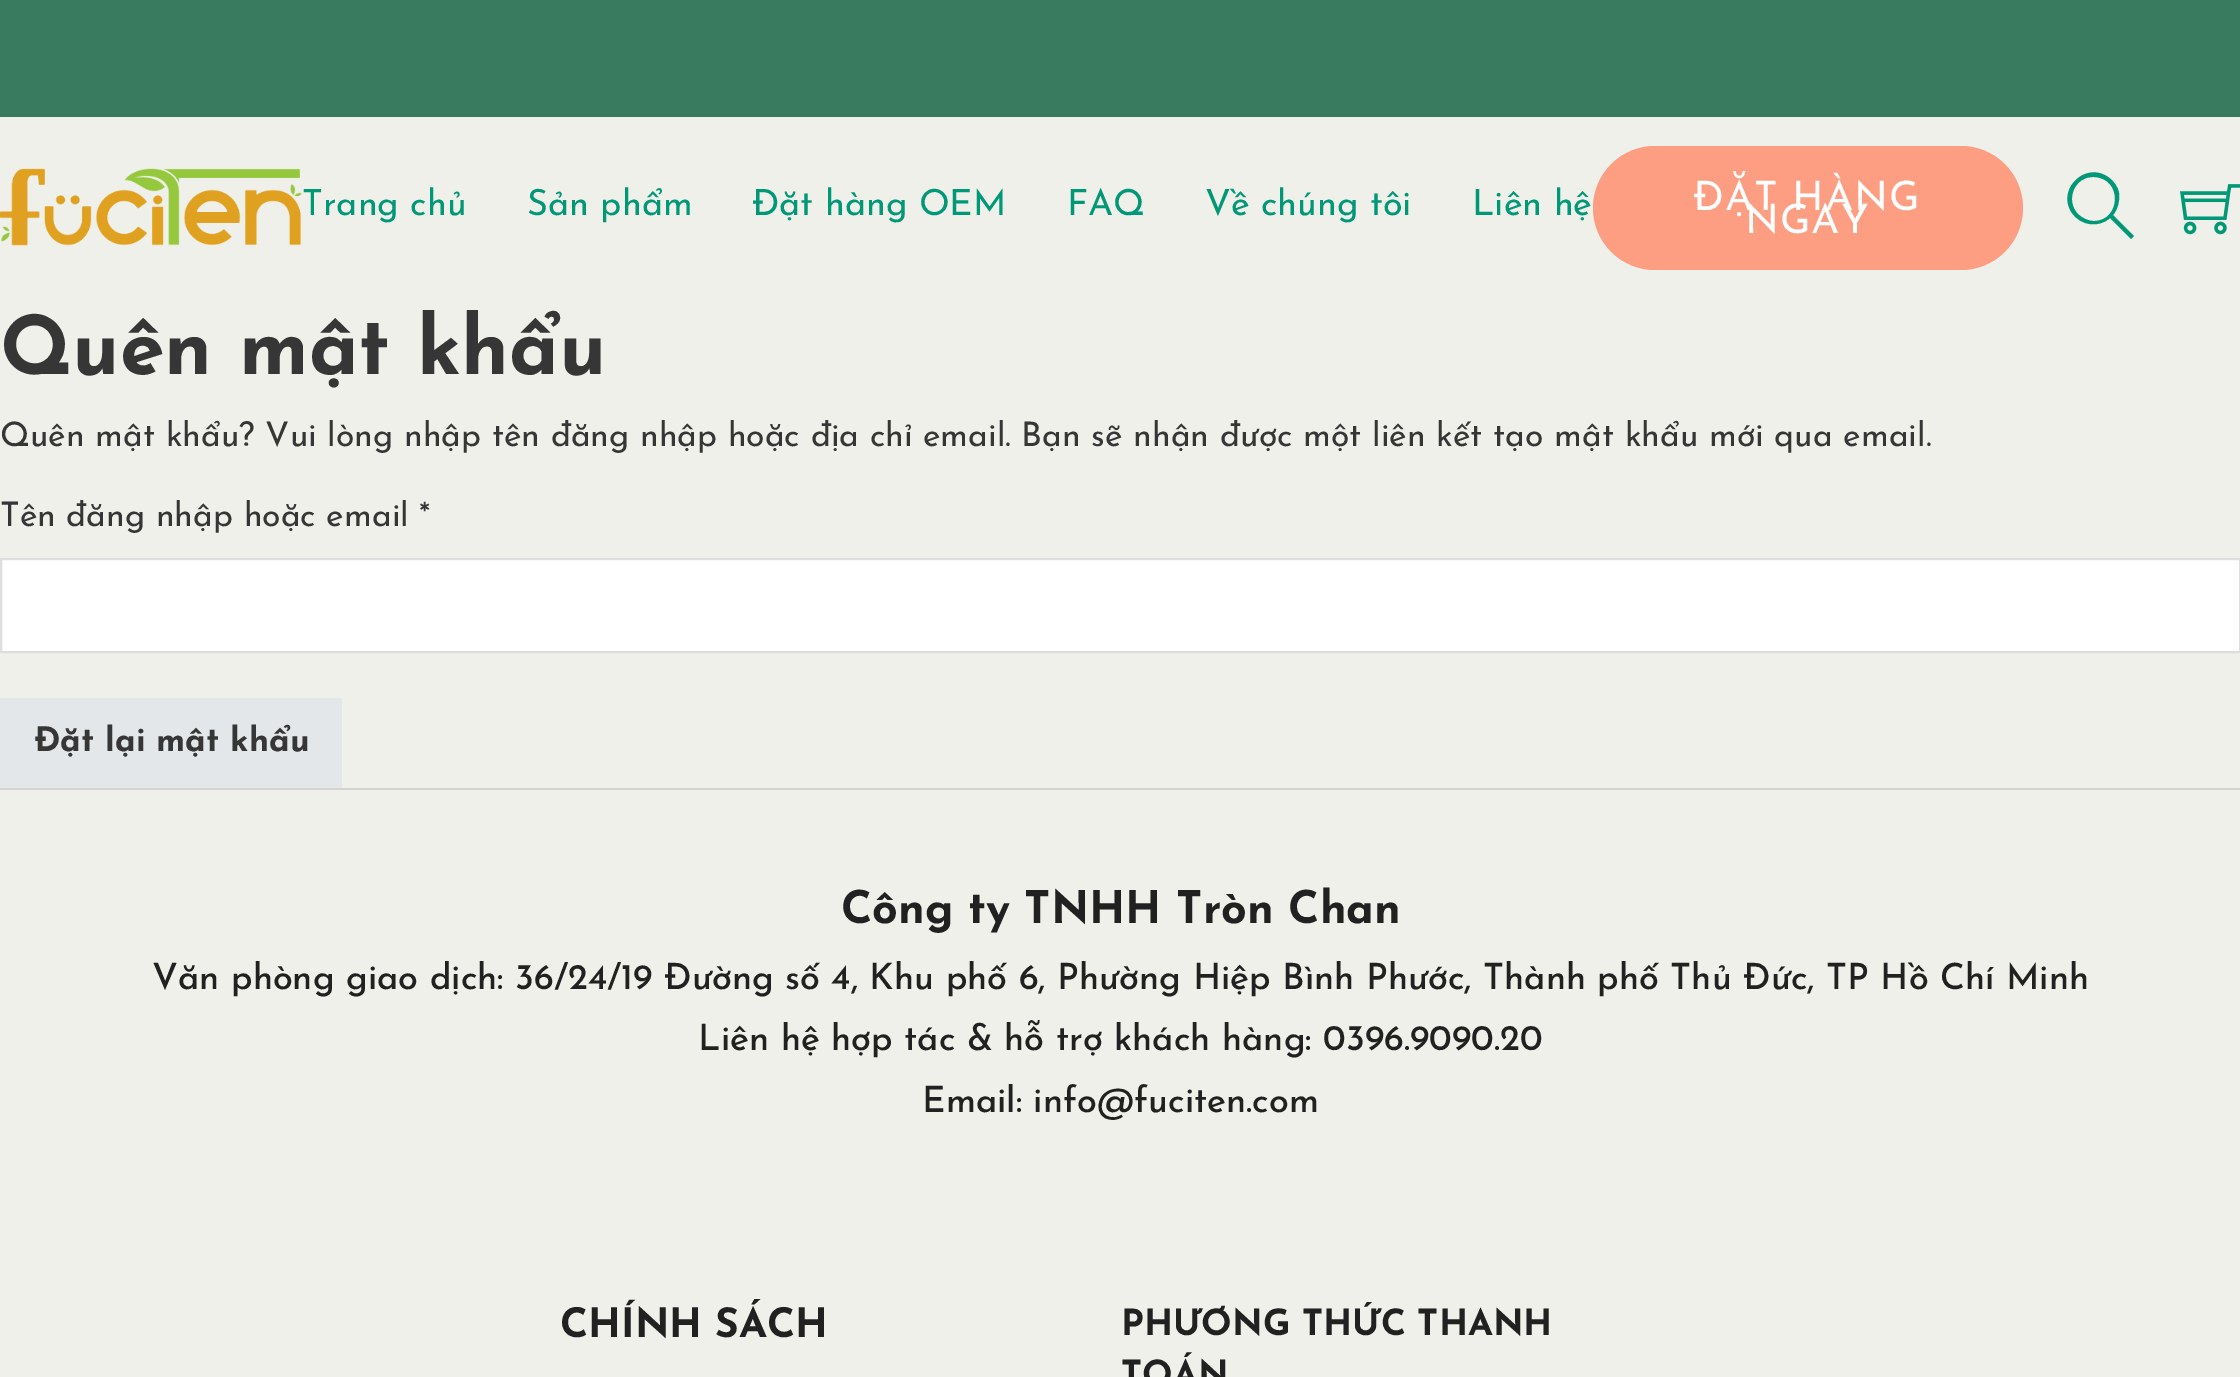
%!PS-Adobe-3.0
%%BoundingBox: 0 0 2240 1377
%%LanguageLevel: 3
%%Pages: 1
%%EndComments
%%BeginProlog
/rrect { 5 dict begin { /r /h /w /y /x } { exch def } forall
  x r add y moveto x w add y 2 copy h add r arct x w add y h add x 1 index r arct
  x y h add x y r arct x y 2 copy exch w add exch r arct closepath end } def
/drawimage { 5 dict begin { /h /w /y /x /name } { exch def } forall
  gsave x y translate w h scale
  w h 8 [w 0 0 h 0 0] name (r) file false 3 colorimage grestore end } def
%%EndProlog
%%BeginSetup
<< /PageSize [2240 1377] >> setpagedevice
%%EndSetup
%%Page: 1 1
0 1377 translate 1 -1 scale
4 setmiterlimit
0.941 0.941 0.922 setrgbcolor
0 0 2240 1377 rectfill
0.224 0.482 0.369 setrgbcolor
0 0 2240 117 rectfill
(images/1.raw) 0 168 302 78 drawimage
0.992 0.62 0.51 setrgbcolor
1593 146 430 124 62 rrect fill
0 0.596 0.463 setrgbcolor
newpath 2134 236 moveto 2113 215 lineto 2118 209 2120 201 2119 193 curveto 2118 187 2114 181 2108 177 curveto 2085 161 2056 190 2072 213 curveto 2081 226 2099 228 2110 218 curveto 2131 239 lineto closepath 2094 221 moveto 2088 221 2082 218 2078 214 curveto 2065 201 2074 176 2094 177 curveto 2123 178 2121 221 2094 221 curveto closepath fill
(images/2.raw) 2180 184 60 51 drawimage
1 setgray
newpath 1 559 moveto 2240 559 lineto 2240 652 lineto 1 652 lineto closepath gsave fill grestore
0.867 0.871 0.875 setrgbcolor
2 setlinewidth
stroke
0.894 0.906 0.914 setrgbcolor
0 698 342 90 rectfill
0.827 0.827 0.824 setrgbcolor
0 788 2240 2 rectfill
/JosefinSans-Regular [36 0 0 -36 0 0] selectfont
0 0.596 0.463 setrgbcolor
302 215 moveto (Trang chủ) show
527 215 moveto (Sản phẩm) show
752 215 moveto (Đặt hàng OEM) show
1067 215 moveto (FAQ) show
1205 215 moveto (Về chúng tôi) show
1472 215 moveto (Liên hệ) show
/JosefinSans-Regular [40.5 0 0 -40.5 0 0] selectfont
1 setgray
1693 210 moveto 1 0 (ĐẶT HÀNG) ashow
1745 233 moveto 1 0 (NGAY) ashow
/JosefinSans-Bold [81 0 0 -81 0 0] selectfont
0.212 setgray
0 374 moveto (Quên mật khẩu) show
/JosefinSans-Regular [33.75 0 0 -33.75 0 0] selectfont
0 446 moveto (Quên mật khẩu? Vui lòng nhập tên đăng nhập hoặc địa chỉ email. Bạn sẽ nhận được một liên kết tạo mật khẩu mới qua email.) show
0 526 moveto (Tên đăng nhập hoặc email *) show
/JosefinSans-Bold [33.75 0 0 -33.75 0 0] selectfont
34 751 moveto (Đặt lại mật khẩu) show
/JosefinSans-Bold [45 0 0 -45 0 0] selectfont
0.129 setgray
841 923 moveto (Công ty TNHH Tròn Chan) show
/JosefinSans-Medium [36 0 0 -36 0 0] selectfont
152 989 moveto (Văn phòng giao dịch: 36/24/19 Đường số 4, Khu phố 6, Phường Hiệp Bình Phước, Thành phố Thủ Đức, TP Hồ Chí Minh) show
698 1050 moveto (Liên hệ hợp tác & hỗ trợ khách hàng: 0396.9090.20) show
922 1112 moveto (Email: info@fuciten.com) show
/JosefinSans-Bold [40.5 0 0 -40.5 0 0] selectfont
560 1337 moveto (CHÍNH SÁCH) show
/JosefinSans-Bold [36 0 0 -36 0 0] selectfont
1121 1335 moveto (PHƯƠNG THỨC THANH) show
1121 1386 moveto (TOÁN) show
showpage
%%EOF
